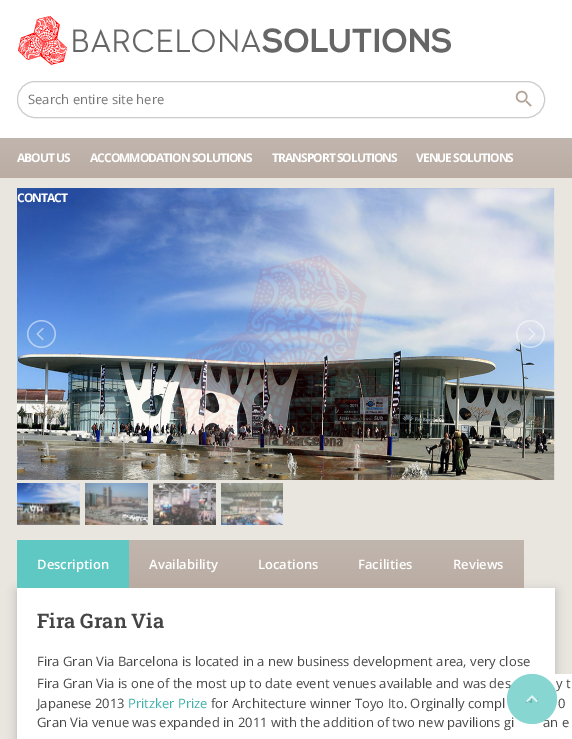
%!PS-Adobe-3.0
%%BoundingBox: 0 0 572 739
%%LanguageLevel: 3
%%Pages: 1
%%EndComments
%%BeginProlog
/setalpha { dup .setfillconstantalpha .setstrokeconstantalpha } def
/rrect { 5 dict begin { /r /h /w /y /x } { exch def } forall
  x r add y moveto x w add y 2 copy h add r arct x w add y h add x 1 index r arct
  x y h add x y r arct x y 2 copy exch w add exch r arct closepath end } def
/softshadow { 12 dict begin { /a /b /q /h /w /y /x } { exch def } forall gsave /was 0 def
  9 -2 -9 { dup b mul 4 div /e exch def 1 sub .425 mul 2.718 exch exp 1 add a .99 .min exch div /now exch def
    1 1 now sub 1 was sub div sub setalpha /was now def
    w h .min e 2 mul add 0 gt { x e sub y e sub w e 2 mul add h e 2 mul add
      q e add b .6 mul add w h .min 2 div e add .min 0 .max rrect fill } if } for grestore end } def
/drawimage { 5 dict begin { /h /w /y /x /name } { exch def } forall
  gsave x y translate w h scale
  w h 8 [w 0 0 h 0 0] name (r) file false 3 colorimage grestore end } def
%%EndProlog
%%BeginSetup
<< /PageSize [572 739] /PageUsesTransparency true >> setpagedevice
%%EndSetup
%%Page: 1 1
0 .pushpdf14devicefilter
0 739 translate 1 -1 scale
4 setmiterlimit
0.914 0.902 0.878 setrgbcolor
0 0 572 739 rectfill
1 setgray
0 0 572 138 rectfill
(images/1.raw) 18 16 433 49 drawimage
0.8 setgray
17.5 81.5 527 36 17.5 rrect stroke
(images/2.raw) 515 90 17 17 drawimage
gsave newpath 0 138 moveto 572 138 lineto 572 178 lineto 0 178 lineto closepath clip newpath
<< /ShadingType 2 /ColorSpace /DeviceRGB /Coords [286 138 286 178] /Extend [true true] /Function << /FunctionType 2 /Domain [0 1] /C0 [0.757 0.714 0.682] /C1 [0.729 0.675 0.639] /N 1 >> >> shfill grestore
(images/3.raw) 17 188 538 292 drawimage
(images/4.raw) 27 320 29 28 drawimage
(images/5.raw) 516 320 29 28 drawimage
(images/6.raw) 17 483 63 42 drawimage
(images/7.raw) 85 483 63 42 drawimage
(images/8.raw) 153 483 63 42 drawimage
(images/9.raw) 221 483 62 42 drawimage
0 setgray
17 591 538 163 0 5 0.2 softshadow
0.373 0.784 0.761 setrgbcolor
17 540 112 48 rectfill
gsave newpath 129 540 moveto 238 540 lineto 238 588 lineto 129 588 lineto closepath clip newpath
<< /ShadingType 2 /ColorSpace /DeviceRGB /Coords [184 540 184 588] /Extend [true true] /Function << /FunctionType 2 /Domain [0 1] /C0 [0.757 0.714 0.682] /C1 [0.729 0.675 0.639] /N 1 >> >> shfill grestore
gsave newpath 238 540 moveto 338 540 lineto 338 588 lineto 238 588 lineto closepath clip newpath
<< /ShadingType 2 /ColorSpace /DeviceRGB /Coords [288 540 288 588] /Extend [true true] /Function << /FunctionType 2 /Domain [0 1] /C0 [0.757 0.714 0.682] /C1 [0.729 0.675 0.639] /N 1 >> >> shfill grestore
gsave newpath 338 540 moveto 433 540 lineto 433 588 lineto 338 588 lineto closepath clip newpath
<< /ShadingType 2 /ColorSpace /DeviceRGB /Coords [386 540 386 588] /Extend [true true] /Function << /FunctionType 2 /Domain [0 1] /C0 [0.757 0.714 0.682] /C1 [0.729 0.675 0.639] /N 1 >> >> shfill grestore
gsave newpath 433 540 moveto 524 540 lineto 524 588 lineto 433 588 lineto closepath clip newpath
<< /ShadingType 2 /ColorSpace /DeviceRGB /Coords [479 540 479 588] /Extend [true true] /Function << /FunctionType 2 /Domain [0 1] /C0 [0.757 0.714 0.682] /C1 [0.729 0.675 0.639] /N 1 >> >> shfill grestore
1 setgray
17 588 538 151 rectfill
555 674 17 65 rectfill
/OpenSans-Regular [13 0 0 -13 0 0] selectfont
0.459 setgray
28 104 moveto (Search entire site here) show
/OpenSans-Bold [12 0 0 -12 0 0] selectfont
1 setgray
17 162 moveto -1 0 (ABOUT US) ashow
90 162 moveto -1 0 (ACCOMMODATION SOLUTIONS) ashow
272 162 moveto -1 0 (TRANSPORT SOLUTIONS) ashow
416 162 moveto -1 0 (VENUE SOLUTIONS) ashow
17 202 moveto -1 0 (CONTACT) ashow
/OpenSans-SemiBold [13 0 0 -13 0 0] selectfont
37 569 moveto (Description) show
149 569 moveto (Availability) show
258 569 moveto (Locations) show
358 569 moveto (Facilities) show
453 569 moveto (Reviews) show
/RobotoSlab-SemiBold [20 0 0 -20 0 0] selectfont
0.271 setgray
37 628 moveto (Fira Gran Via) show
/OpenSans-Regular [13 0 0 -13 0 0] selectfont
37 666 moveto (Fira Gran Via Barcelona is located in a new business development area, very close) show
37 688 moveto (Fira Gran Via is one of the most up to date event venues available and was des) show
556 688 moveto (y t) show
37 708 moveto (Japanese 2013) show
0.255 0.686 0.667 setrgbcolor
128 708 moveto (Pritzker Prize) show
0.271 setgray
211 708 moveto (for Architecture winner Toyo Ito. Orginally compl) show
558 708 moveto (0) show
37 727 moveto (Gran Via venue was expanded in 2011 with the addition of two new pavilions gi) show
543 727 moveto (an e) show
0.75 setalpha
0.373 0.784 0.761 setrgbcolor
newpath 532 699 25 0 360 arc closepath fill
1 setalpha
(images/10.raw) 526 695 12 8 drawimage
.poppdf14devicefilter showpage
%%EOF
